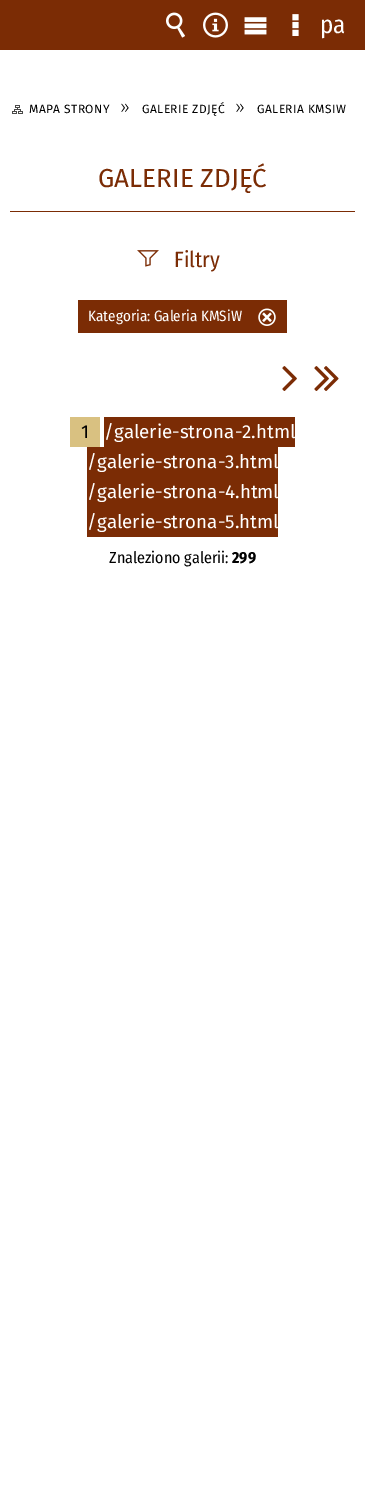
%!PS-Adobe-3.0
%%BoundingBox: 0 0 365 1490
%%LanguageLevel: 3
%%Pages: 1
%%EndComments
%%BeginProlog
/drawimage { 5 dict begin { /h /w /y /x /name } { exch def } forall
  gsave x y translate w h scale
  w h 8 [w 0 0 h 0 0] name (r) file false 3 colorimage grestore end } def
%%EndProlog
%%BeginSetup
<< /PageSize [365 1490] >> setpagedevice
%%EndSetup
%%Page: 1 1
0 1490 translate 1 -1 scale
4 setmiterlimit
1 setgray
0 0 365 1490 rectfill
0.482 0.173 0.02 setrgbcolor
0 0 365 50 rectfill
(images/1.raw) 166 12 19 26 drawimage
(images/2.raw) 203 12 25 26 drawimage
(images/3.raw) 244 17 23 18 drawimage
(images/4.raw) 292 14 7 22 drawimage
(images/5.raw) 12 105 11 9 drawimage
10 211 345 1 rectfill
(images/6.raw) 137 250 22 17 drawimage
78 300 209 33 rectfill
(images/7.raw) 258 308 18 18 drawimage
(images/8.raw) 282 366 15 25 drawimage
(images/9.raw) 314 366 25 25 drawimage
0.851 0.757 0.506 setrgbcolor
70 417 30 30 rectfill
0.482 0.173 0.02 setrgbcolor
104 417 191 30 rectfill
87 447 191 90 rectfill
/FiraSansCondensed-Regular [25 0 0 -25 0 0] selectfont
1 setgray
320 33 moveto (pa) show
/FiraSans-Regular [12 0 0 -12 0 0] selectfont
0 setgray
29 113 moveto 0.4 0 (MAPA STRONY) ashow
/FiraSans-Light [18 0 0 -18 0 0] selectfont
120 113 moveto 0.4 0 (») ashow
/FiraSans-Regular [12 0 0 -12 0 0] selectfont
142 113 moveto 0.4 0 (GALERIE ZDJĘĆ) ashow
/FiraSans-Light [18 0 0 -18 0 0] selectfont
235 113 moveto 0.4 0 (») ashow
/FiraSans-Regular [12 0 0 -12 0 0] selectfont
257 113 moveto 0.4 0 (GALERIA KMSIW) ashow
/FiraSans-Regular [26 0 0 -26 0 0] selectfont
0.482 0.173 0.02 setrgbcolor
98 187 moveto (GALERIE ZDJĘĆ) show
/FiraSansCondensed-Regular [22 0 0 -22 0 0] selectfont
174 267 moveto (Filtry) show
/FiraSansCondensed-Regular [15 0 0 -15 0 0] selectfont
1 setgray
88 321 moveto (Kategoria: Galeria KMSiW) show
/FiraSans-Regular [18.75 0 0 -18.75 0 0] selectfont
0 setgray
81 438 moveto (1) show
1 setgray
104 438 moveto (/galerie-strona-2.html) show
87 468 moveto (/galerie-strona-3.html) show
87 498 moveto (/galerie-strona-4.html) show
87 528 moveto (/galerie-strona-5.html) show
/FiraSansCondensed-Regular [16 0 0 -16 0 0] selectfont
0 setgray
109 563 moveto (Znaleziono galerii:) show
/FiraSansCondensed-Bold [16 0 0 -16 0 0] selectfont
232 563 moveto (299) show
showpage
%%EOF
